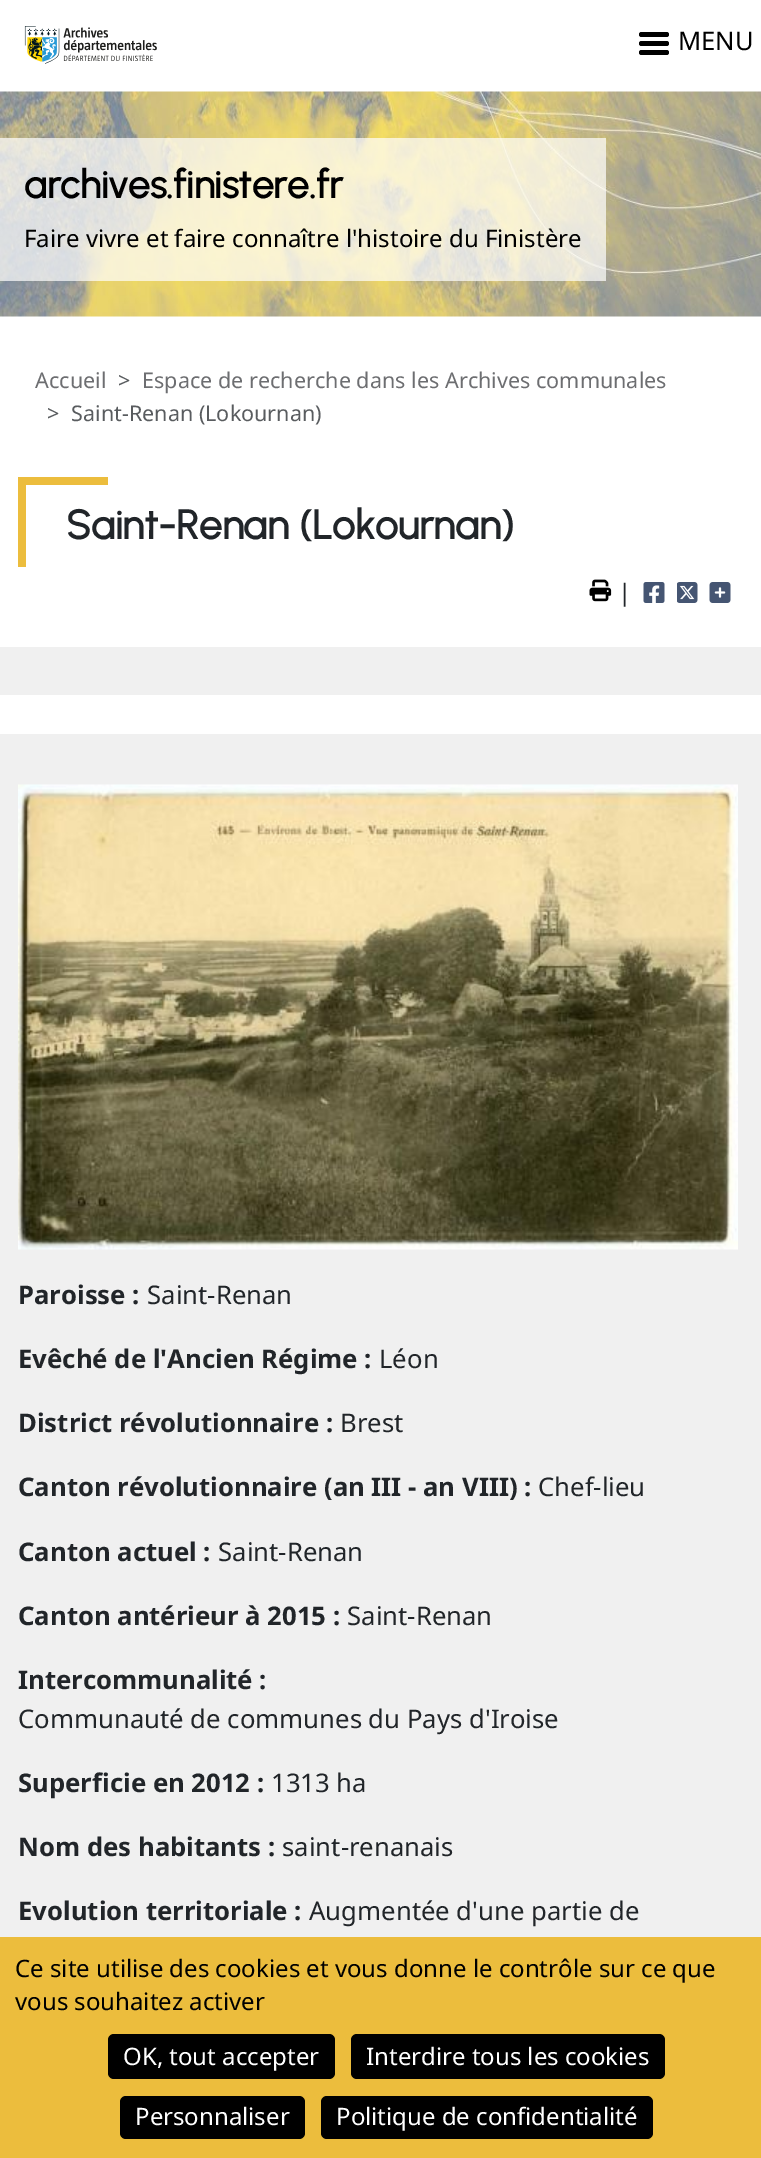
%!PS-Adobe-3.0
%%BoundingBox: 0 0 761 2158
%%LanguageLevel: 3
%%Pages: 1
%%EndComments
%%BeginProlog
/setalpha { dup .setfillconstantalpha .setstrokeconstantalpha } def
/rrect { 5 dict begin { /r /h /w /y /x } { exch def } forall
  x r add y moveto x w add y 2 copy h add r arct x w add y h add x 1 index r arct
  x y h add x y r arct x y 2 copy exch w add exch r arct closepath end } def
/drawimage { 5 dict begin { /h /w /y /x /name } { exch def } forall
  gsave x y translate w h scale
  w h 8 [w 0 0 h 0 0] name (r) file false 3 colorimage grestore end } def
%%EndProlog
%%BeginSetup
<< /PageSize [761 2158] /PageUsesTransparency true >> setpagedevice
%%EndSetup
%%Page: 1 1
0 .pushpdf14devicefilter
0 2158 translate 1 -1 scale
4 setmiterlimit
1 setgray
0 0 761 2158 rectfill
(images/1.raw) 24 26 133 38 drawimage
0 setgray
639 32 30 5 2.5 rrect fill
639 41 30 5 2.5 rrect fill
639 50 30 5 2.5 rrect fill
(images/2.raw) 0 91 761 226 drawimage
0.7 setalpha
1 setgray
0 138 606 143 rectfill
1 setalpha
0.925 0.741 0.239 setrgbcolor
18 477 90 8 rectfill
18 477 8 90 rectfill
(images/3.raw) 589 579 23 23 drawimage
(images/4.raw) 643 582 22 21 drawimage
(images/5.raw) 677 582 21 21 drawimage
(images/6.raw) 709 582 22 21 drawimage
0.941 setgray
0 647 761 48 rectfill
0 734 761 1203 rectfill
(images/7.raw) 18 784 720 466 drawimage
0.925 0.741 0.239 setrgbcolor
0 1937 761 221 rectfill
0 setgray
108 2034 227 45 6 rrect fill
351 2034 314 45 6 rrect fill
120 2096 185 43 6 rrect fill
321 2096 332 43 6 rrect fill
/NotoSans-Regular [25.5 0 0 -25.5 0 0] selectfont
678 50 moveto (MENU) show
/Urbanist-Bold [38.75 0 0 -38.75 0 0] selectfont
24 198 moveto (archives.finistere.fr) show
/NotoSans-Regular [24 0 0 -24 0 0] selectfont
24 247 moveto (Faire vivre et faire connaître l'histoire du Finistère) show
/NotoSans-Regular [21.6 0 0 -21.6 0 0] selectfont
0.427 0.431 0.443 setrgbcolor
35 388 moveto (Accueil) show
0.349 0.361 0.373 setrgbcolor
118 388 moveto (>) show
0.427 0.431 0.443 setrgbcolor
142 388 moveto (Espace de recherche dans les Archives communales) show
0.349 0.361 0.373 setrgbcolor
47 421 moveto (>) show
71 421 moveto (Saint-Renan \(Lokournan\)) show
/Urbanist-Bold [40.75 0 0 -40.75 0 0] selectfont
0.129 0.145 0.161 setrgbcolor
66 539 moveto (Saint-Renan \(Lokournan\)) show
/NotoSans-Regular [24 0 0 -24 0 0] selectfont
618 601 moveto (|) show
/NotoSans-Bold [25.7 0 0 -25.7 0 0] selectfont
18 1304 moveto (Paroisse :) show
/NotoSans-Regular [25.7 0 0 -25.7 0 0] selectfont
147 1304 moveto (Saint-Renan) show
/NotoSans-Bold [25.7 0 0 -25.7 0 0] selectfont
18 1368 moveto (Evêché de l'Ancien Régime :) show
/NotoSans-Regular [25.7 0 0 -25.7 0 0] selectfont
379 1368 moveto (Léon) show
/NotoSans-Bold [25.7 0 0 -25.7 0 0] selectfont
18 1432 moveto (District révolutionnaire :) show
/NotoSans-Regular [25.7 0 0 -25.7 0 0] selectfont
340 1432 moveto (Brest) show
/NotoSans-Bold [25.7 0 0 -25.7 0 0] selectfont
18 1496 moveto (Canton révolutionnaire \(an III - an VIII\)) show
524 1496 moveto (:) show
/NotoSans-Regular [25.7 0 0 -25.7 0 0] selectfont
538 1496 moveto (Chef-lieu) show
/NotoSans-Bold [25.7 0 0 -25.7 0 0] selectfont
18 1561 moveto (Canton actuel :) show
/NotoSans-Regular [25.7 0 0 -25.7 0 0] selectfont
218 1561 moveto (Saint-Renan) show
/NotoSans-Bold [25.7 0 0 -25.7 0 0] selectfont
18 1625 moveto (Canton antérieur à 2015 :) show
/NotoSans-Regular [25.7 0 0 -25.7 0 0] selectfont
347 1625 moveto (Saint-Renan) show
/NotoSans-Bold [25.7 0 0 -25.7 0 0] selectfont
18 1689 moveto (Intercommunalité :) show
/NotoSans-Regular [25.7 0 0 -25.7 0 0] selectfont
18 1728 moveto (Communauté de communes du Pays d'Iroise) show
/NotoSans-Bold [25.7 0 0 -25.7 0 0] selectfont
18 1792 moveto (Superficie en 2012 :) show
/NotoSans-Regular [25.7 0 0 -25.7 0 0] selectfont
271 1792 moveto (1313 ha) show
/NotoSans-Bold [25.7 0 0 -25.7 0 0] selectfont
18 1856 moveto (Nom des habitants :) show
/NotoSans-Regular [25.7 0 0 -25.7 0 0] selectfont
282 1856 moveto (saint-renanais) show
/NotoSans-Bold [25.7 0 0 -25.7 0 0] selectfont
18 1920 moveto (Evolution territoriale :) show
/NotoSans-Regular [25.7 0 0 -25.7 0 0] selectfont
309 1920 moveto (Augmentée d'une partie de) show
/NotoSans-Regular [24 0 0 -24 0 0] selectfont
0 setgray
15 1977 moveto (Ce site utilise des cookies et vous donne le contrôle sur ce que) show
15 2010 moveto (vous souhaitez activer) show
1 setgray
123 2065 moveto (OK, tout accepter) show
366 2065 moveto (Interdire tous les cookies) show
135 2125 moveto (Personnaliser) show
336 2125 moveto (Politique de confidentialité) show
.poppdf14devicefilter showpage
%%EOF
